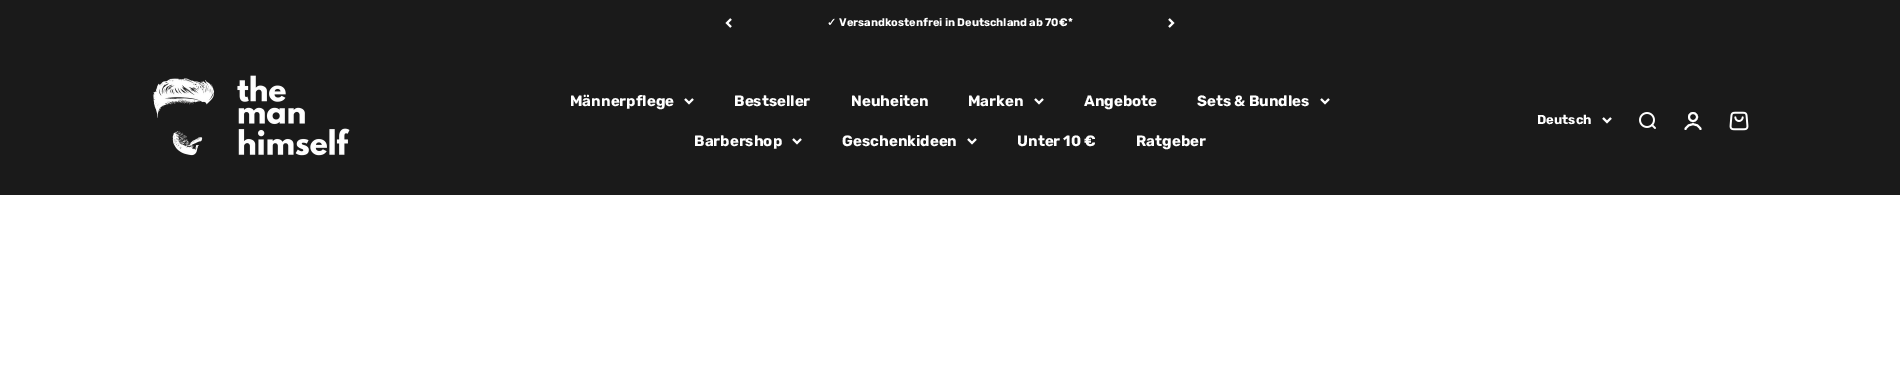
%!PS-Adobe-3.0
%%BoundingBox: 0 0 1900 391
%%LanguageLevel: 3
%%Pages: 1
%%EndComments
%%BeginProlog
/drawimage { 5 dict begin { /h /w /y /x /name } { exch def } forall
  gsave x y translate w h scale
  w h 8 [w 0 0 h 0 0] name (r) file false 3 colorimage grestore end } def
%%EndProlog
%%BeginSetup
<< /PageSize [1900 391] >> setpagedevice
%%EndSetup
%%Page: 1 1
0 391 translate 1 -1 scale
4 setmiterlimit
1 setgray
0 0 1900 391 rectfill
0.102 setgray
0 0 1900 195 rectfill
1 setgray
2 setlinewidth
newpath 731 19 moveto 727 23 lineto 731 27 lineto stroke
newpath 1169 27 moveto 1173 23 lineto 1169 19 lineto stroke
(images/1.raw) 152 75 198 81 drawimage
newpath 685 99 moveto 689 103 lineto 693 99 lineto stroke
newpath 1035 99 moveto 1039 103 lineto 1043 99 lineto stroke
newpath 1321 99 moveto 1325 103 lineto 1329 99 lineto stroke
newpath 793 139 moveto 797 143 lineto 801 139 lineto stroke
newpath 968 139 moveto 972 143 lineto 976 139 lineto stroke
newpath 1603 118 moveto 1607 122 lineto 1611 118 lineto stroke
(images/2.raw) 1639 112 17 17 drawimage
newpath 1693 117 4 0 360 arc closepath stroke
1 setlinecap
newpath 1685.5 129 moveto 1688.5 122.5 1697.5 122.5 1700.5 129 curveto stroke
(images/3.raw) 1729 111 20 20 drawimage
/DejaVuSans-Bold [11 0 0 -11 0 0] selectfont
827 26 moveto (✓) show
/Rubik-Bold [11 0 0 -11 0 0] selectfont
839 26 moveto (Versandkostenfrei in Deutschland ab 70€*) show
/Rubik-Bold [15 0 0 -15 0 0] selectfont
570 106 moveto (Männerpflege) show
734 106 moveto (Bestseller) show
851 106 moveto (Neuheiten) show
968 106 moveto (Marken) show
1084 106 moveto (Angebote) show
1197 106 moveto (Sets & Bundles) show
694 146 moveto (Barbershop) show
842 146 moveto (Geschenkideen) show
1017 146 moveto (Unter 10 €) show
1136 146 moveto (Ratgeber) show
/Rubik-Bold [13 0 0 -13 0 0] selectfont
1537 124 moveto (Deutsch) show
showpage
%%EOF
